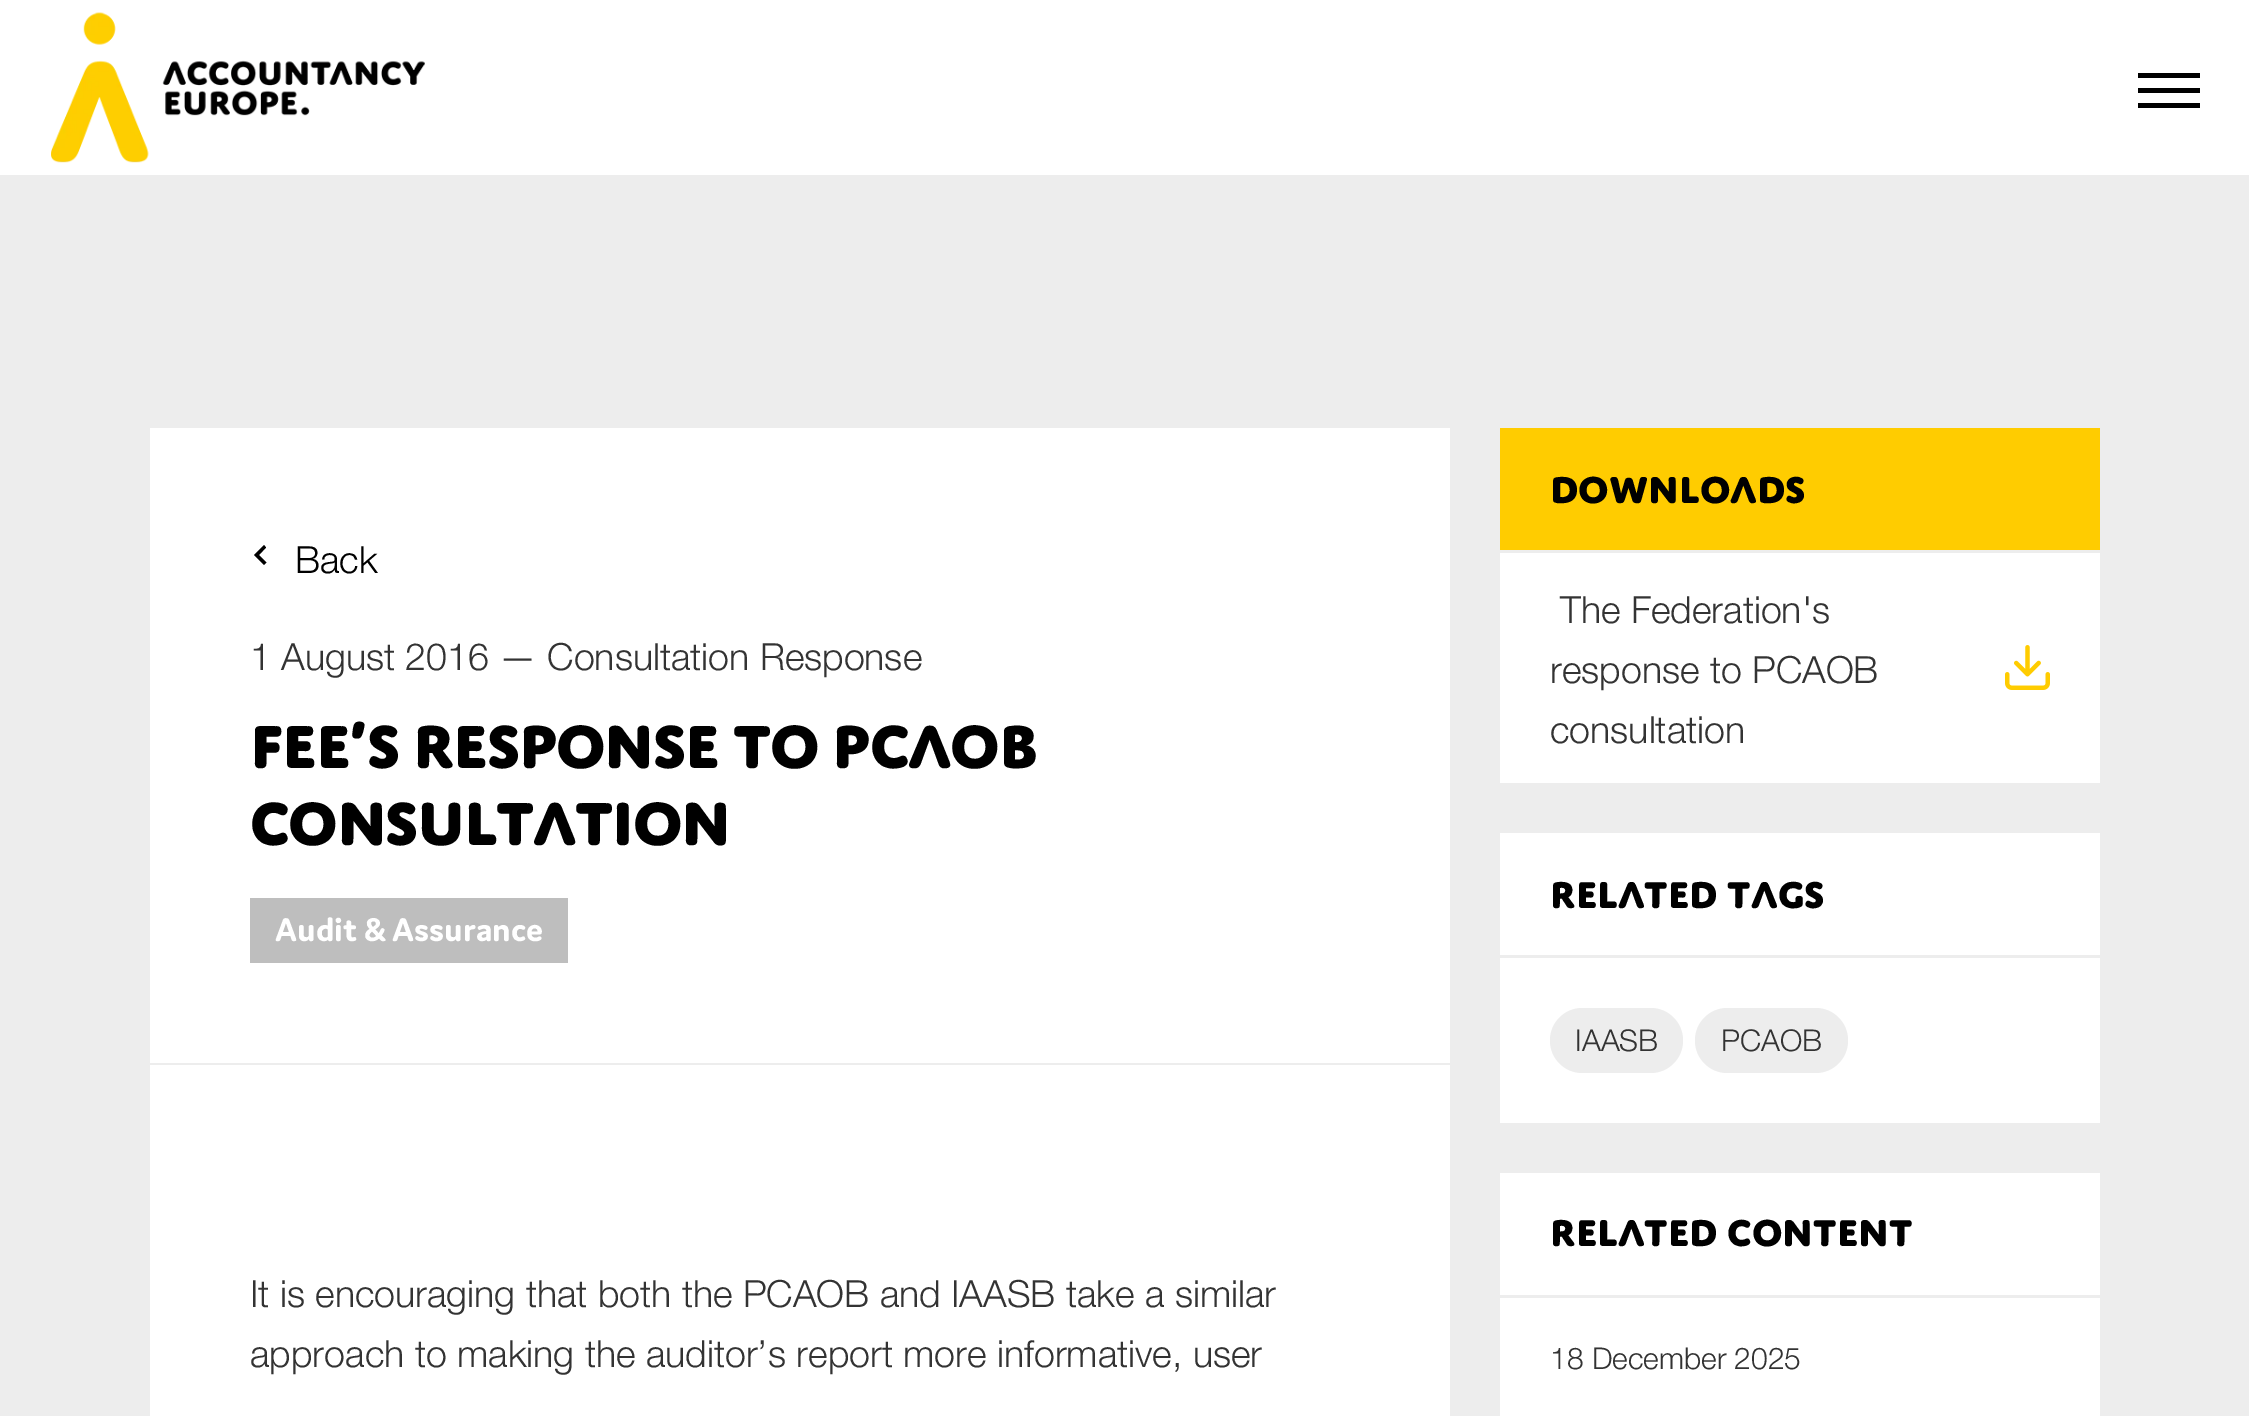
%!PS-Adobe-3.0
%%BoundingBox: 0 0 2249 1416
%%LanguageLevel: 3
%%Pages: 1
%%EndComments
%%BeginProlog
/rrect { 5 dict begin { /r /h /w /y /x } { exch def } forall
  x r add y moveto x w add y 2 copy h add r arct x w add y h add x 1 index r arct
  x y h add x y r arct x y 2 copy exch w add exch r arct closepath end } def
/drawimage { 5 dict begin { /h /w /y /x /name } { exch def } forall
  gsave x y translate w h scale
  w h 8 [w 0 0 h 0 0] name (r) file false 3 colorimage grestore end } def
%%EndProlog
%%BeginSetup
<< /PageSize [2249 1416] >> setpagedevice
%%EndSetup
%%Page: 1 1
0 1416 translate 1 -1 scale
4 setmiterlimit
0.929 setgray
0 0 2249 1416 rectfill
1 setgray
0 0 2249 175 rectfill
(images/1.raw) 51 12 374 151 drawimage
0 setgray
2138 88 62 5 rectfill
2138 73 62 5 rectfill
2138 103 62 5 rectfill
1 setgray
150 428 1300 635 rectfill
0 setgray
newpath 266 547.5 moveto 259 555 lineto 266.5 562.5 lineto 264 565 lineto 254 555 lineto 264 545 lineto closepath fill
0.745 setgray
250 898 318 65 rectfill
1 setgray
150 1065 1300 351 rectfill
1500 553 600 230 rectfill
1 0.8 0 setrgbcolor
1500 428 600 122 rectfill
(images/2.raw) 2005 645 45 45 drawimage
1 setgray
1500 833 600 290 rectfill
0.929 setgray
1500 955 600 3 rectfill
1550 1008 133 65 32.5 rrect fill
1695 1008 153 65 32.5 rrect fill
1 setgray
1500 1173 600 243 rectfill
0.929 setgray
1500 1295 600 3 rectfill
/HelveticaNeue-Light [37.5 0 0 -37.5 0 0] selectfont
0 setgray
295 573 moveto (Back) show
0.2 setgray
250 670 moveto (1 August 2016 — Consultation Response) show
/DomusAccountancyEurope-ExtraBold [65 0 0 -65 0 0] selectfont
0 setgray
250 768 moveto -1.25 0 (FEE’s response to PCAOB) ashow
250 845 moveto -1.25 0 (consultation) ashow
/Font-SemiBold [35 0 0 -35 0 0] selectfont
1 setgray
275 941 moveto (Audit & Assurance) show
/HelveticaNeue-Light [37.5 0 0 -37.5 0 0] selectfont
0.2 setgray
250 1307 moveto (It is encouraging that both the PCAOB and IAASB take a similar) show
250 1367 moveto (approach to making the auditor’s report more informative, user) show
/DomusAccountancyEurope-ExtraBold [40 0 0 -40 0 0] selectfont
0 setgray
1550 503 moveto (Downloads) show
/HelveticaNeue-Light [37.5 0 0 -37.5 0 0] selectfont
0.2 setgray
1560 623 moveto (The Federation's) show
1550 683 moveto (response to PCAOB) show
1550 743 moveto (consultation) show
/DomusAccountancyEurope-ExtraBold [40 0 0 -40 0 0] selectfont
0 setgray
1550 908 moveto (Related tags) show
/HelveticaNeue-Light [30 0 0 -30 0 0] selectfont
0.2 setgray
1575 1051 moveto (IAASB) show
1721 1051 moveto (PCAOB) show
/DomusAccountancyEurope-ExtraBold [40 0 0 -40 0 0] selectfont
0 setgray
1550 1246 moveto (Related content) show
/HelveticaNeue-Light [30 0 0 -30 0 0] selectfont
0.2 setgray
1550 1369 moveto (18 December 2025) show
showpage
%%EOF
